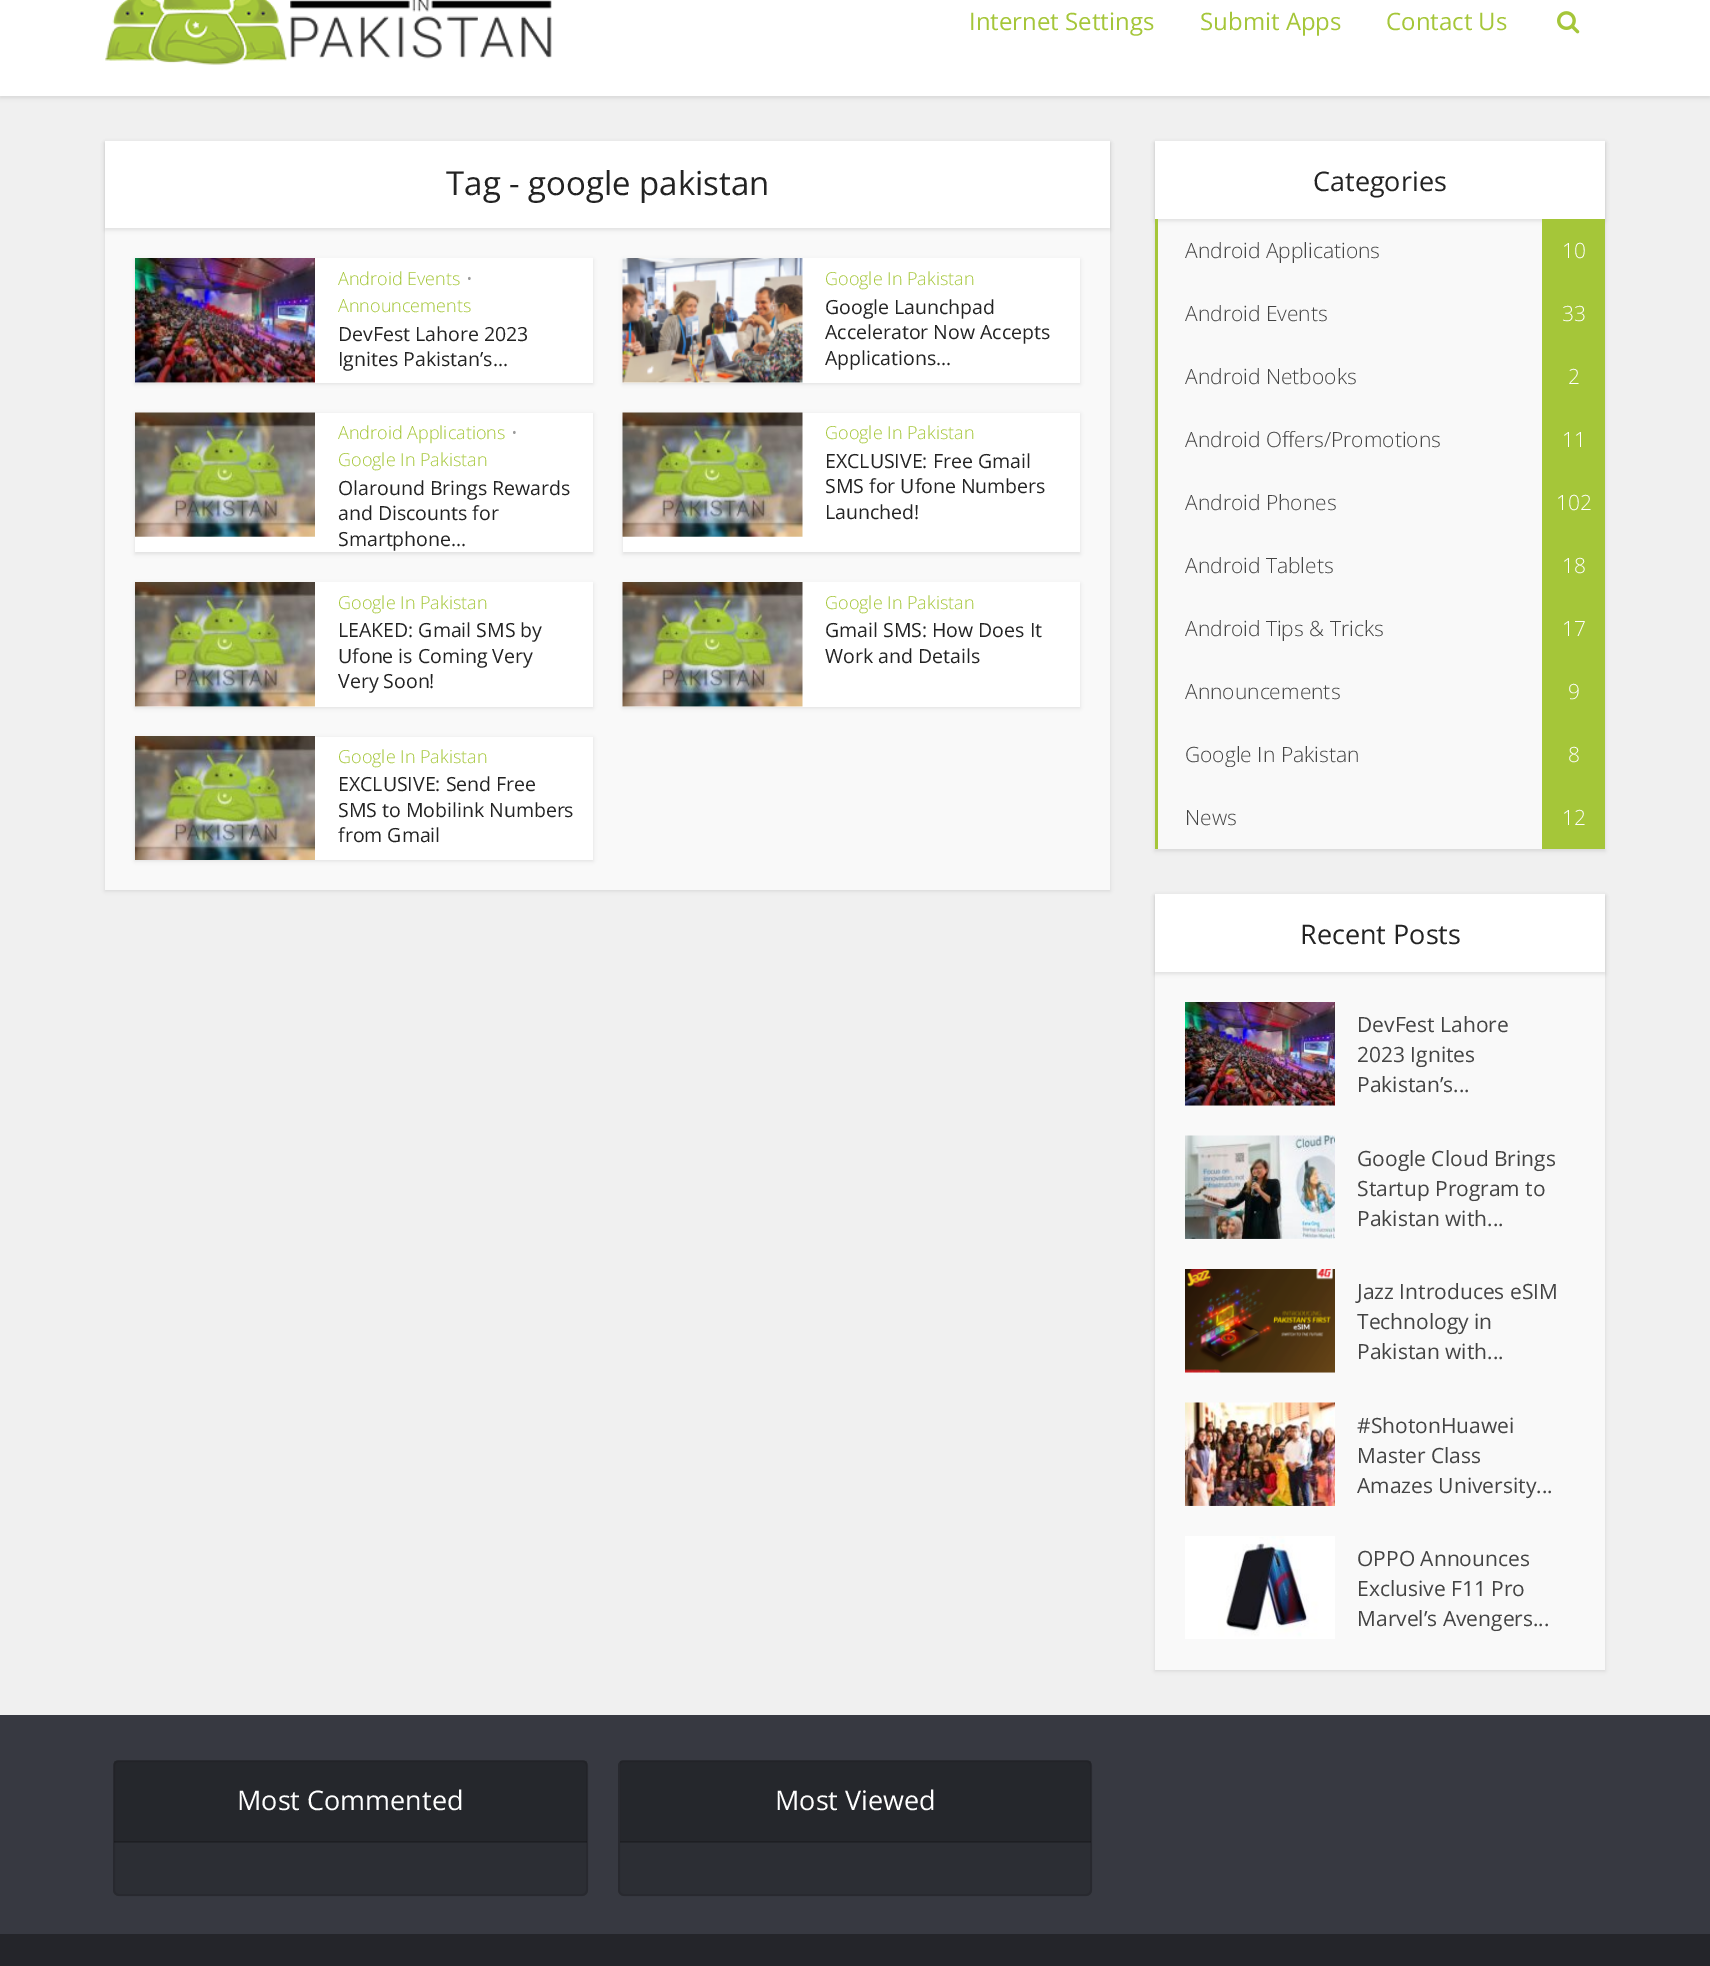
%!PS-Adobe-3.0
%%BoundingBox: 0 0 1710 1966
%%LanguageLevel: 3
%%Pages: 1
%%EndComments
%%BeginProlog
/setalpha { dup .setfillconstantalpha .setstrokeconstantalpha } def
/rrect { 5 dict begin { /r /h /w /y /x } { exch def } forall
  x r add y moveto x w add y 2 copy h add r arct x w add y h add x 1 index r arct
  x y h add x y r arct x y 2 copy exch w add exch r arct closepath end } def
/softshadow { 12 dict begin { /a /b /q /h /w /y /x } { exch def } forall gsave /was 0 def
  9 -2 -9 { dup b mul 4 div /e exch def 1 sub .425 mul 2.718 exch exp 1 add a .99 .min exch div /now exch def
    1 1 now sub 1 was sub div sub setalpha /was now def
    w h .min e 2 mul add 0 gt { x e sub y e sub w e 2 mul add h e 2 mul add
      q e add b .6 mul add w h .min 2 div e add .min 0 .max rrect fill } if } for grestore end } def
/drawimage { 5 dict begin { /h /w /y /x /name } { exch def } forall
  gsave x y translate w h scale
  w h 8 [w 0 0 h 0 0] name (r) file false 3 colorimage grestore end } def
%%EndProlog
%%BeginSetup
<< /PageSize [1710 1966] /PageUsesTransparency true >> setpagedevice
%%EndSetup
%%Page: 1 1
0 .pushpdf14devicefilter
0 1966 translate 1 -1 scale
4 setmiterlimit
0.941 setgray
0 0 1710 1966 rectfill
0 setgray
0 -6 1710 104 0 2 0.1 softshadow
1 setgray
0 0 1710 96 rectfill
(images/1.raw) 105 0 447 65 drawimage
(images/2.raw) 1557 11 23 23 drawimage
0 setgray
105 143 1005 748 0 2 0.1 softshadow
0.976 setgray
105 228 1005 662 rectfill
0 setgray
105 143 1005 87 0 2 0.1 softshadow
1 setgray
105 141 1005 87 rectfill
0 setgray
135 260 458 124 0 2 0.1 softshadow
1 setgray
135 258 458 125 rectfill
(images/3.raw) 135 258 180 125 drawimage
0 setgray
623 260 457 124 0 2 0.1 softshadow
1 setgray
623 258 457 125 rectfill
(images/4.raw) 622 258 181 125 drawimage
0 setgray
135 414 458 140 0 2 0.1 softshadow
1 setgray
135 413 458 139 rectfill
(images/5.raw) 135 412 180 125 drawimage
0 setgray
623 414 457 140 0 2 0.1 softshadow
1 setgray
623 413 457 139 rectfill
(images/6.raw) 622 412 181 125 drawimage
0 setgray
135 584 458 124 0 2 0.1 softshadow
1 setgray
135 582 458 125 rectfill
(images/7.raw) 135 582 180 125 drawimage
0 setgray
623 584 457 124 0 2 0.1 softshadow
1 setgray
623 582 457 125 rectfill
(images/8.raw) 622 582 181 125 drawimage
0 setgray
135 738 458 123 0 2 0.1 softshadow
1 setgray
315 737 278 123 rectfill
(images/9.raw) 135 736 180 124 drawimage
0 setgray
1155 143 450 708 0 2 0.1 softshadow
0.976 setgray
1158 219 384 630 rectfill
0 setgray
1155 143 450 78 0 2 0.1 softshadow
1 setgray
1155 141 450 78 rectfill
0.647 0.776 0.224 setrgbcolor
1155 219 3 630 rectfill
1542 219 63 630 rectfill
0 setgray
1155 896 450 775 0 2 0.1 softshadow
0.976 setgray
1155 972 450 698 rectfill
0 setgray
1155 896 450 78 0 2 0.1 softshadow
1 setgray
1155 894 450 78 rectfill
(images/10.raw) 1185 1002 150 104 drawimage
(images/11.raw) 1185 1135 150 104 drawimage
(images/12.raw) 1185 1269 150 104 drawimage
(images/13.raw) 1185 1402 150 104 drawimage
(images/14.raw) 1185 1536 150 103 drawimage
0.216 0.224 0.255 setrgbcolor
0 1715 1710 219 rectfill
0.173 0.18 0.204 setrgbcolor
113 1760 475 136 6 rrect fill
0.1 setalpha
0 setgray
2 setlinewidth
114 1761 473 134 5 rrect stroke
0.15 setalpha
114 1761 473 81 rectfill
0.2 setalpha
114 1841 473 2 rectfill
1 setalpha
0.173 0.18 0.204 setrgbcolor
618 1760 474 136 6 rrect fill
0.1 setalpha
0 setgray
619 1761 472 134 5 rrect stroke
0.15 setalpha
620 1761 471 81 rectfill
0.2 setalpha
620 1841 471 2 rectfill
1 setalpha
0.141 0.145 0.165 setrgbcolor
0 1934 1710 32 rectfill
/OpenSans-Regular [24 0 0 -24 0 0] selectfont
0.647 0.776 0.224 setrgbcolor
969 30 moveto (Internet Settings) show
1200 30 moveto (Submit Apps) show
1386 30 moveto (Contact Us) show
/OpenSans-Regular [33 0 0 -33 0 0] selectfont
0.137 setgray
446 195 moveto (Tag - google pakistan) show
/OpenSans-Light [18 0 0 -18 0 0] selectfont
0.647 0.776 0.224 setrgbcolor
338 285 moveto (Android Events) show
0.608 setgray
466 285 moveto (•) show
0.647 0.776 0.224 setrgbcolor
338 312 moveto (Announcements) show
/OpenSans-Regular [19.5 0 0 -19.5 0 0] selectfont
0.137 setgray
338 341 moveto (DevFest Lahore 2023) show
338 366 moveto (Ignites Pakistan’s...) show
/OpenSans-Light [18 0 0 -18 0 0] selectfont
0.647 0.776 0.224 setrgbcolor
825 285 moveto (Google In Pakistan) show
/OpenSans-Regular [19.5 0 0 -19.5 0 0] selectfont
0.137 setgray
825 314 moveto (Google Launchpad) show
825 339 moveto (Accelerator Now Accepts) show
825 365 moveto (Applications...) show
/OpenSans-Light [18 0 0 -18 0 0] selectfont
0.647 0.776 0.224 setrgbcolor
338 439 moveto (Android Applications) show
0.608 setgray
511 439 moveto (•) show
0.647 0.776 0.224 setrgbcolor
338 466 moveto (Google In Pakistan) show
/OpenSans-Regular [19.5 0 0 -19.5 0 0] selectfont
0.137 setgray
338 495 moveto (Olaround Brings Rewards) show
338 520 moveto (and Discounts for) show
338 546 moveto (Smartphone...) show
/OpenSans-Light [18 0 0 -18 0 0] selectfont
0.647 0.776 0.224 setrgbcolor
825 439 moveto (Google In Pakistan) show
/OpenSans-Regular [19.5 0 0 -19.5 0 0] selectfont
0.137 setgray
825 468 moveto (EXCLUSIVE: Free Gmail) show
825 493 moveto (SMS for Ufone Numbers) show
825 519 moveto (Launched!) show
/OpenSans-Light [18 0 0 -18 0 0] selectfont
0.647 0.776 0.224 setrgbcolor
338 609 moveto (Google In Pakistan) show
/OpenSans-Regular [19.5 0 0 -19.5 0 0] selectfont
0.137 setgray
338 637 moveto (LEAKED: Gmail SMS by) show
338 663 moveto (Ufone is Coming Very) show
338 688 moveto (Very Soon!) show
/OpenSans-Light [18 0 0 -18 0 0] selectfont
0.647 0.776 0.224 setrgbcolor
825 609 moveto (Google In Pakistan) show
/OpenSans-Regular [19.5 0 0 -19.5 0 0] selectfont
0.137 setgray
825 637 moveto (Gmail SMS: How Does It) show
825 663 moveto (Work and Details) show
/OpenSans-Light [18 0 0 -18 0 0] selectfont
0.647 0.776 0.224 setrgbcolor
338 763 moveto (Google In Pakistan) show
/OpenSans-Regular [19.5 0 0 -19.5 0 0] selectfont
0.137 setgray
338 791 moveto (EXCLUSIVE: Send Free) show
338 817 moveto (SMS to Mobilink Numbers) show
338 842 moveto (from Gmail) show
/OpenSans-Regular [27 0 0 -27 0 0] selectfont
1313 191 moveto (Categories) show
/OpenSans-Light [21 0 0 -21 0 0] selectfont
0.267 setgray
1185 258 moveto (Android Applications) show
1 setgray
1562 258 moveto (10) show
0.267 setgray
1185 321 moveto (Android Events) show
1 setgray
1562 321 moveto (33) show
0.267 setgray
1185 384 moveto (Android Netbooks) show
1 setgray
1568 384 moveto (2) show
0.267 setgray
1185 447 moveto (Android Offers/Promotions) show
1 setgray
1562 447 moveto (11) show
0.267 setgray
1185 510 moveto (Android Phones) show
1 setgray
1556 510 moveto (102) show
0.267 setgray
1185 573 moveto (Android Tablets) show
1 setgray
1562 573 moveto (18) show
0.267 setgray
1185 636 moveto (Android Tips & Tricks) show
1 setgray
1562 636 moveto (17) show
0.267 setgray
1185 699 moveto (Announcements) show
1 setgray
1568 699 moveto (9) show
0.267 setgray
1185 762 moveto (Google In Pakistan) show
1 setgray
1568 762 moveto (8) show
0.267 setgray
1185 825 moveto (News) show
1 setgray
1562 825 moveto (12) show
/OpenSans-Regular [27 0 0 -27 0 0] selectfont
0.137 setgray
1300 944 moveto (Recent Posts) show
/OpenSans-Regular [21 0 0 -21 0 0] selectfont
0.267 setgray
1357 1032 moveto (DevFest Lahore) show
1357 1062 moveto (2023 Ignites) show
1357 1092 moveto (Pakistan’s...) show
1357 1166 moveto (Google Cloud Brings) show
1357 1196 moveto (Startup Program to) show
1357 1226 moveto (Pakistan with...) show
1357 1299 moveto (Jazz Introduces eSIM) show
1357 1329 moveto (Technology in) show
1357 1359 moveto (Pakistan with...) show
1357 1433 moveto (#ShotonHuawei) show
1357 1463 moveto (Master Class) show
1357 1493 moveto (Amazes University...) show
1357 1566 moveto (OPPO Announces) show
1357 1596 moveto (Exclusive F11 Pro) show
1357 1626 moveto (Marvel’s Avengers...) show
/OpenSans-Regular [27 0 0 -27 0 0] selectfont
1 setgray
237 1810 moveto (Most Commented) show
775 1810 moveto (Most Viewed) show
.poppdf14devicefilter showpage
%%EOF
